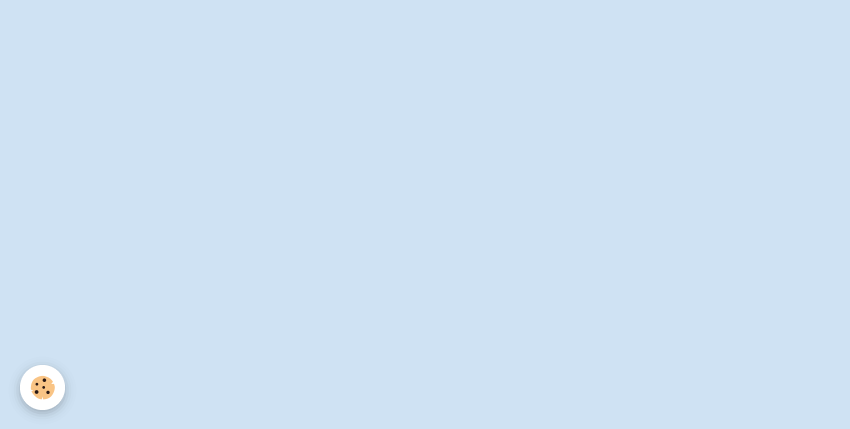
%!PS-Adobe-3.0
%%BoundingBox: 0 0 850 429
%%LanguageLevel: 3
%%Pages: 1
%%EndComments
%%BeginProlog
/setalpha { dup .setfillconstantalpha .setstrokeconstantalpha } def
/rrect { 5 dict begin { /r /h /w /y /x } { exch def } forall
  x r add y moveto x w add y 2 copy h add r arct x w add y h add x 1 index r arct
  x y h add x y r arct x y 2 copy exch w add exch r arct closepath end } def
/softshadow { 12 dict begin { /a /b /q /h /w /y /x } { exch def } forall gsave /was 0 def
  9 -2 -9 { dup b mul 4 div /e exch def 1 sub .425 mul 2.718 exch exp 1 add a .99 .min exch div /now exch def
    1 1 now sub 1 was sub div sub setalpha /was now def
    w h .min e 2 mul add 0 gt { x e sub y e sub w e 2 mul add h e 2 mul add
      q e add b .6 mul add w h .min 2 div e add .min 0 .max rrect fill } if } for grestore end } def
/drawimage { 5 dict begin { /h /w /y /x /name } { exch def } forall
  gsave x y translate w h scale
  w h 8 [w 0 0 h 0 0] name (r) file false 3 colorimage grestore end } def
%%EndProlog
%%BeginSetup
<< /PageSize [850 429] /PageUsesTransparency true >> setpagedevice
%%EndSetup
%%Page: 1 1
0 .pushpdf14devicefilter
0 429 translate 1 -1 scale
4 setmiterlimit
0.812 0.886 0.953 setrgbcolor
0 0 850 429 rectfill
0 setgray
20 368 45 45 22.5 5 0.24 softshadow
1 setgray
newpath 42.5 387.5 22.5 0 360 arc closepath fill
(images/1.raw) 30 375 25 25 drawimage
.poppdf14devicefilter showpage
%%EOF
